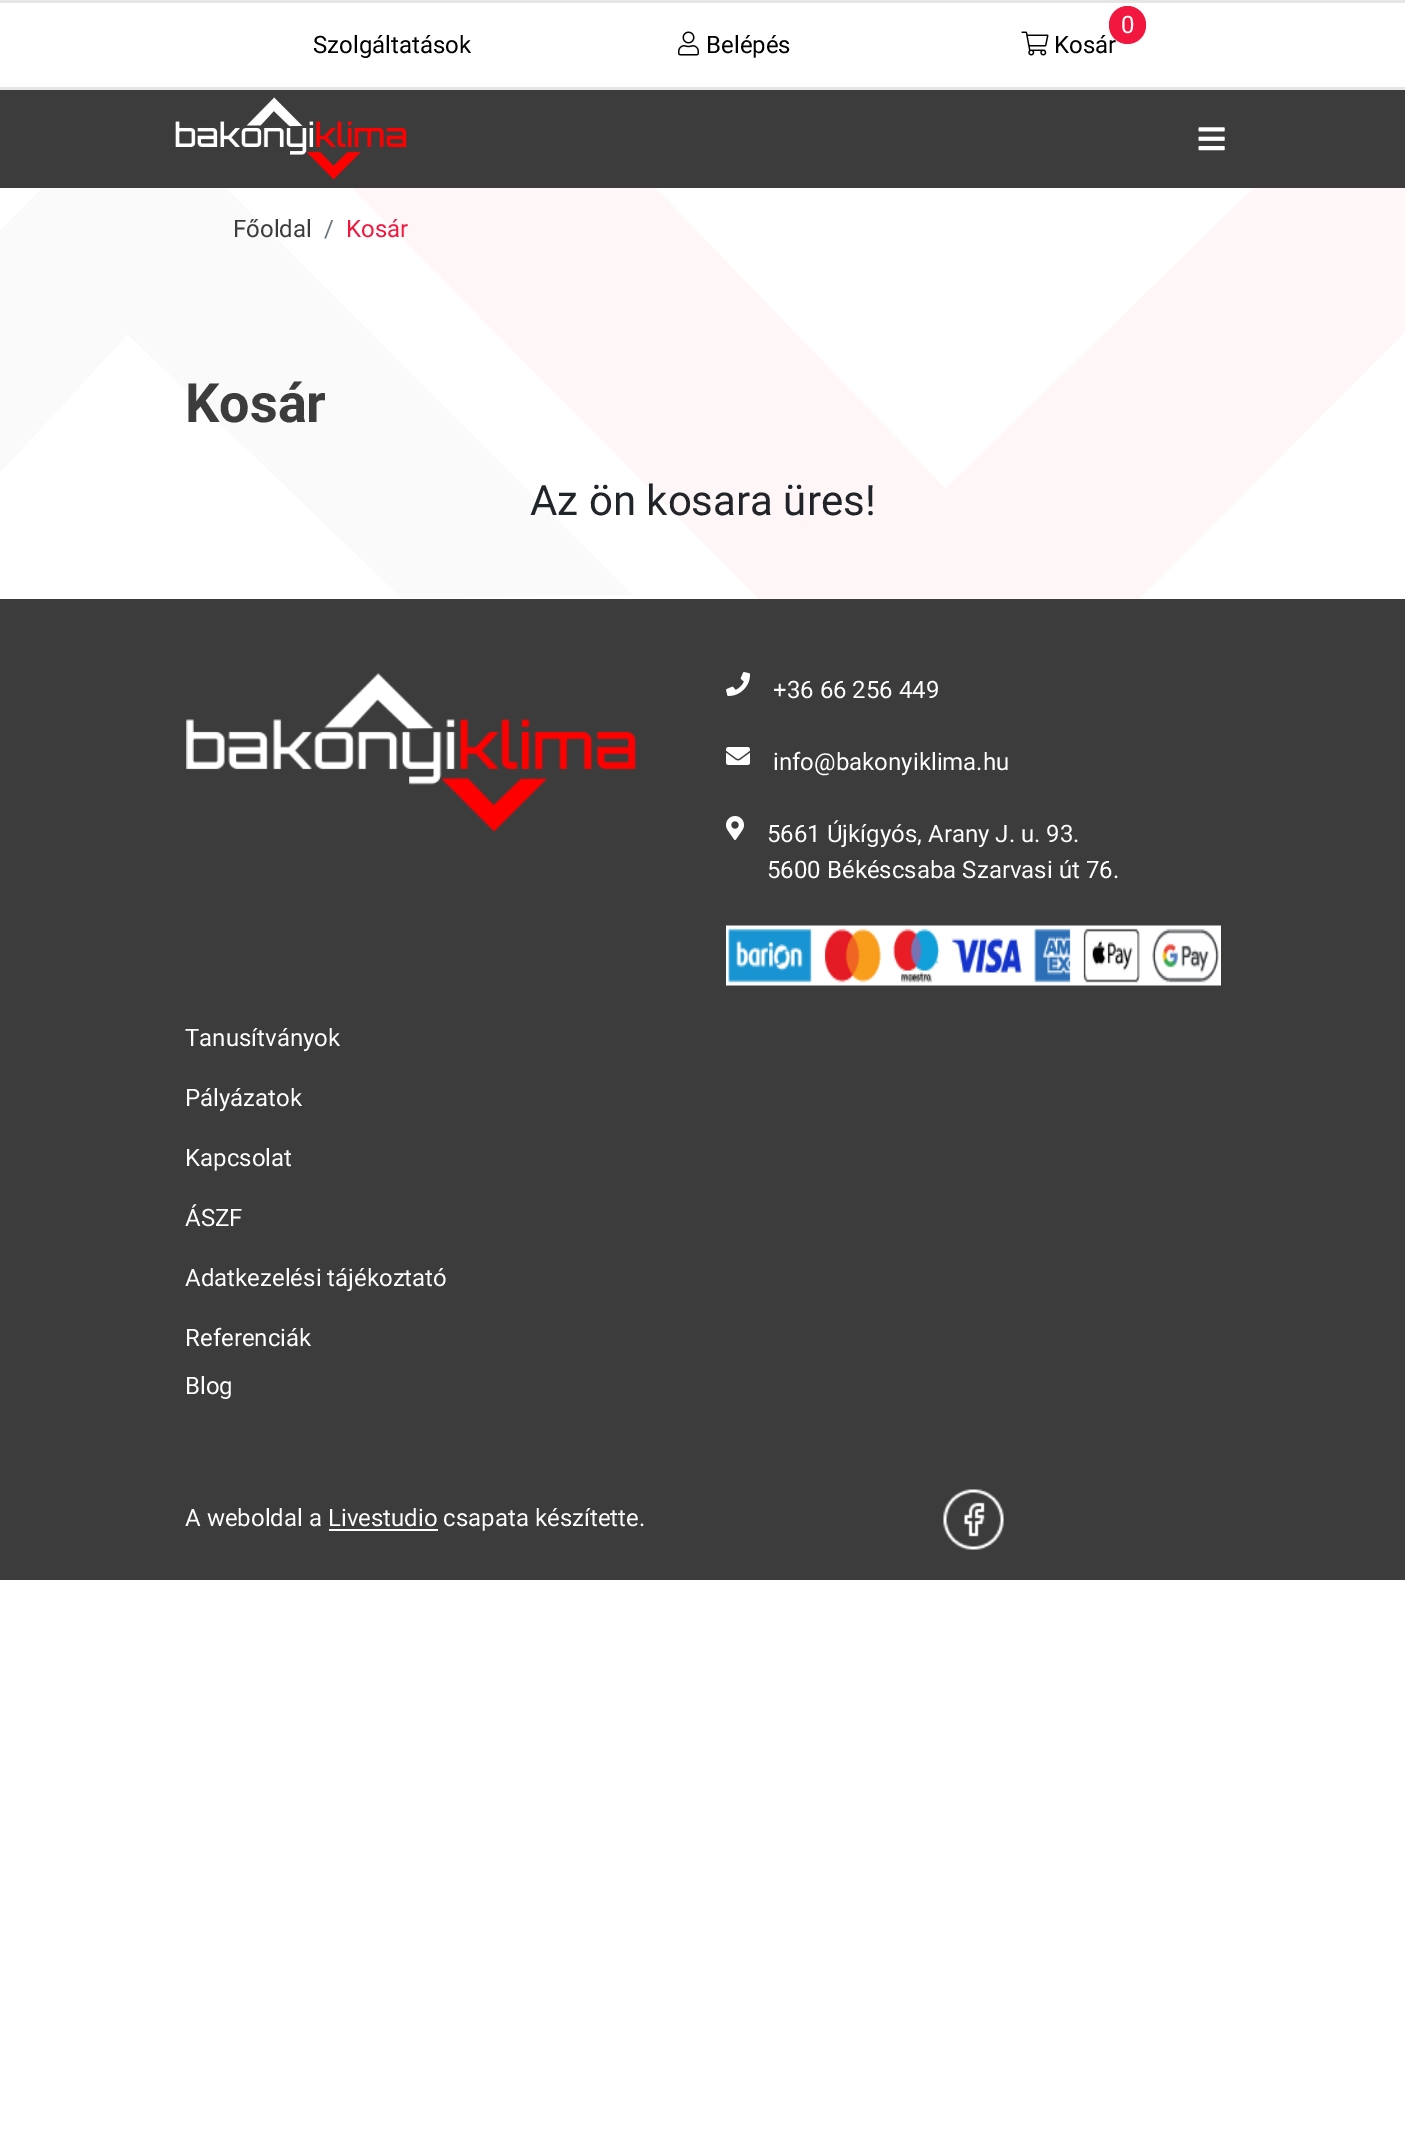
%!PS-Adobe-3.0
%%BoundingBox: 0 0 1405 2153
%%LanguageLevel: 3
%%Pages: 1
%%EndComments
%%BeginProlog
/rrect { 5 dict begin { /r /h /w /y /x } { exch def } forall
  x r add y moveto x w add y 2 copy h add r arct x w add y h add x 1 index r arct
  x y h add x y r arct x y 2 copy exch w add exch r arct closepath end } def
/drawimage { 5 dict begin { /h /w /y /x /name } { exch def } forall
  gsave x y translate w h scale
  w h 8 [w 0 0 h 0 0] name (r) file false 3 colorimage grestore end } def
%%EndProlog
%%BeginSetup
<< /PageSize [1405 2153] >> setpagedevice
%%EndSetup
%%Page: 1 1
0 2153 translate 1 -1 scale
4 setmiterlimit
1 setgray
0 0 1405 2153 rectfill
0.902 setgray
0 0 1405 3 rectfill
0 87 1405 3 rectfill
(images/1.raw) 678 31 21 25 drawimage
(images/2.raw) 1021 31 28 25 drawimage
0.235 setgray
0 90 1405 98 rectfill
(images/3.raw) 175 97 232 83 drawimage
(images/4.raw) 1198 127 27 24 drawimage
(images/5.raw) 0 188 632 410 drawimage
(images/6.raw) 353 188 1052 411 drawimage
0 599 1405 981 rectfill
(images/7.raw) 186 673 450 159 drawimage
(images/8.raw) 726 672 25 24 drawimage
(images/9.raw) 726 747 24 18 drawimage
(images/10.raw) 726 816 18 24 drawimage
(images/11.raw) 726 925 495 61 drawimage
1 setgray
329 1529 109 2 rectfill
(images/12.raw) 943 1489 61 61 drawimage
/Roboto-Regular [24 0 0 -24 0 0] selectfont
0 setgray
313 53 moveto (Szolgáltatások) show
706 53 moveto (Belépés) show
1054 53 moveto (Kosár) show
0.949 0.09 0.243 setrgbcolor
1109 6 37 38 18.5 rrect fill
1 setgray
1121 33 moveto (0) show
0.235 setgray
233 237 moveto (Főoldal) show
0.424 0.459 0.49 setrgbcolor
324 237 moveto (/) show
0.949 0.09 0.243 setrgbcolor
346 237 moveto (Kosár) show
/Roboto-Bold [54 0 0 -54 0 0] selectfont
0.235 setgray
185 422 moveto (Kosár) show
/Roboto-Regular [42 0 0 -42 0 0] selectfont
0.129 0.145 0.161 setrgbcolor
530 515 moveto (Az ön kosara üres!) show
/Roboto-Regular [24 0 0 -24 0 0] selectfont
1 setgray
773 698 moveto (+36 66 256 449) show
773 770 moveto (info@bakonyiklima.hu) show
767 842 moveto (5661 Újkígyós, Arany J. u. 93.) show
767 878 moveto (5600 Békéscsaba Szarvasi út 76.) show
185 1046 moveto (Tanusítványok) show
185 1106 moveto (Pályázatok) show
185 1166 moveto (Kapcsolat) show
185 1226 moveto (ÁSZF) show
185 1286 moveto (Adatkezelési tájékoztató) show
185 1346 moveto (Referenciák) show
185 1394 moveto (Blog) show
185 1526 moveto (A weboldal a Livestudio csapata készítette.) show
showpage
%%EOF
